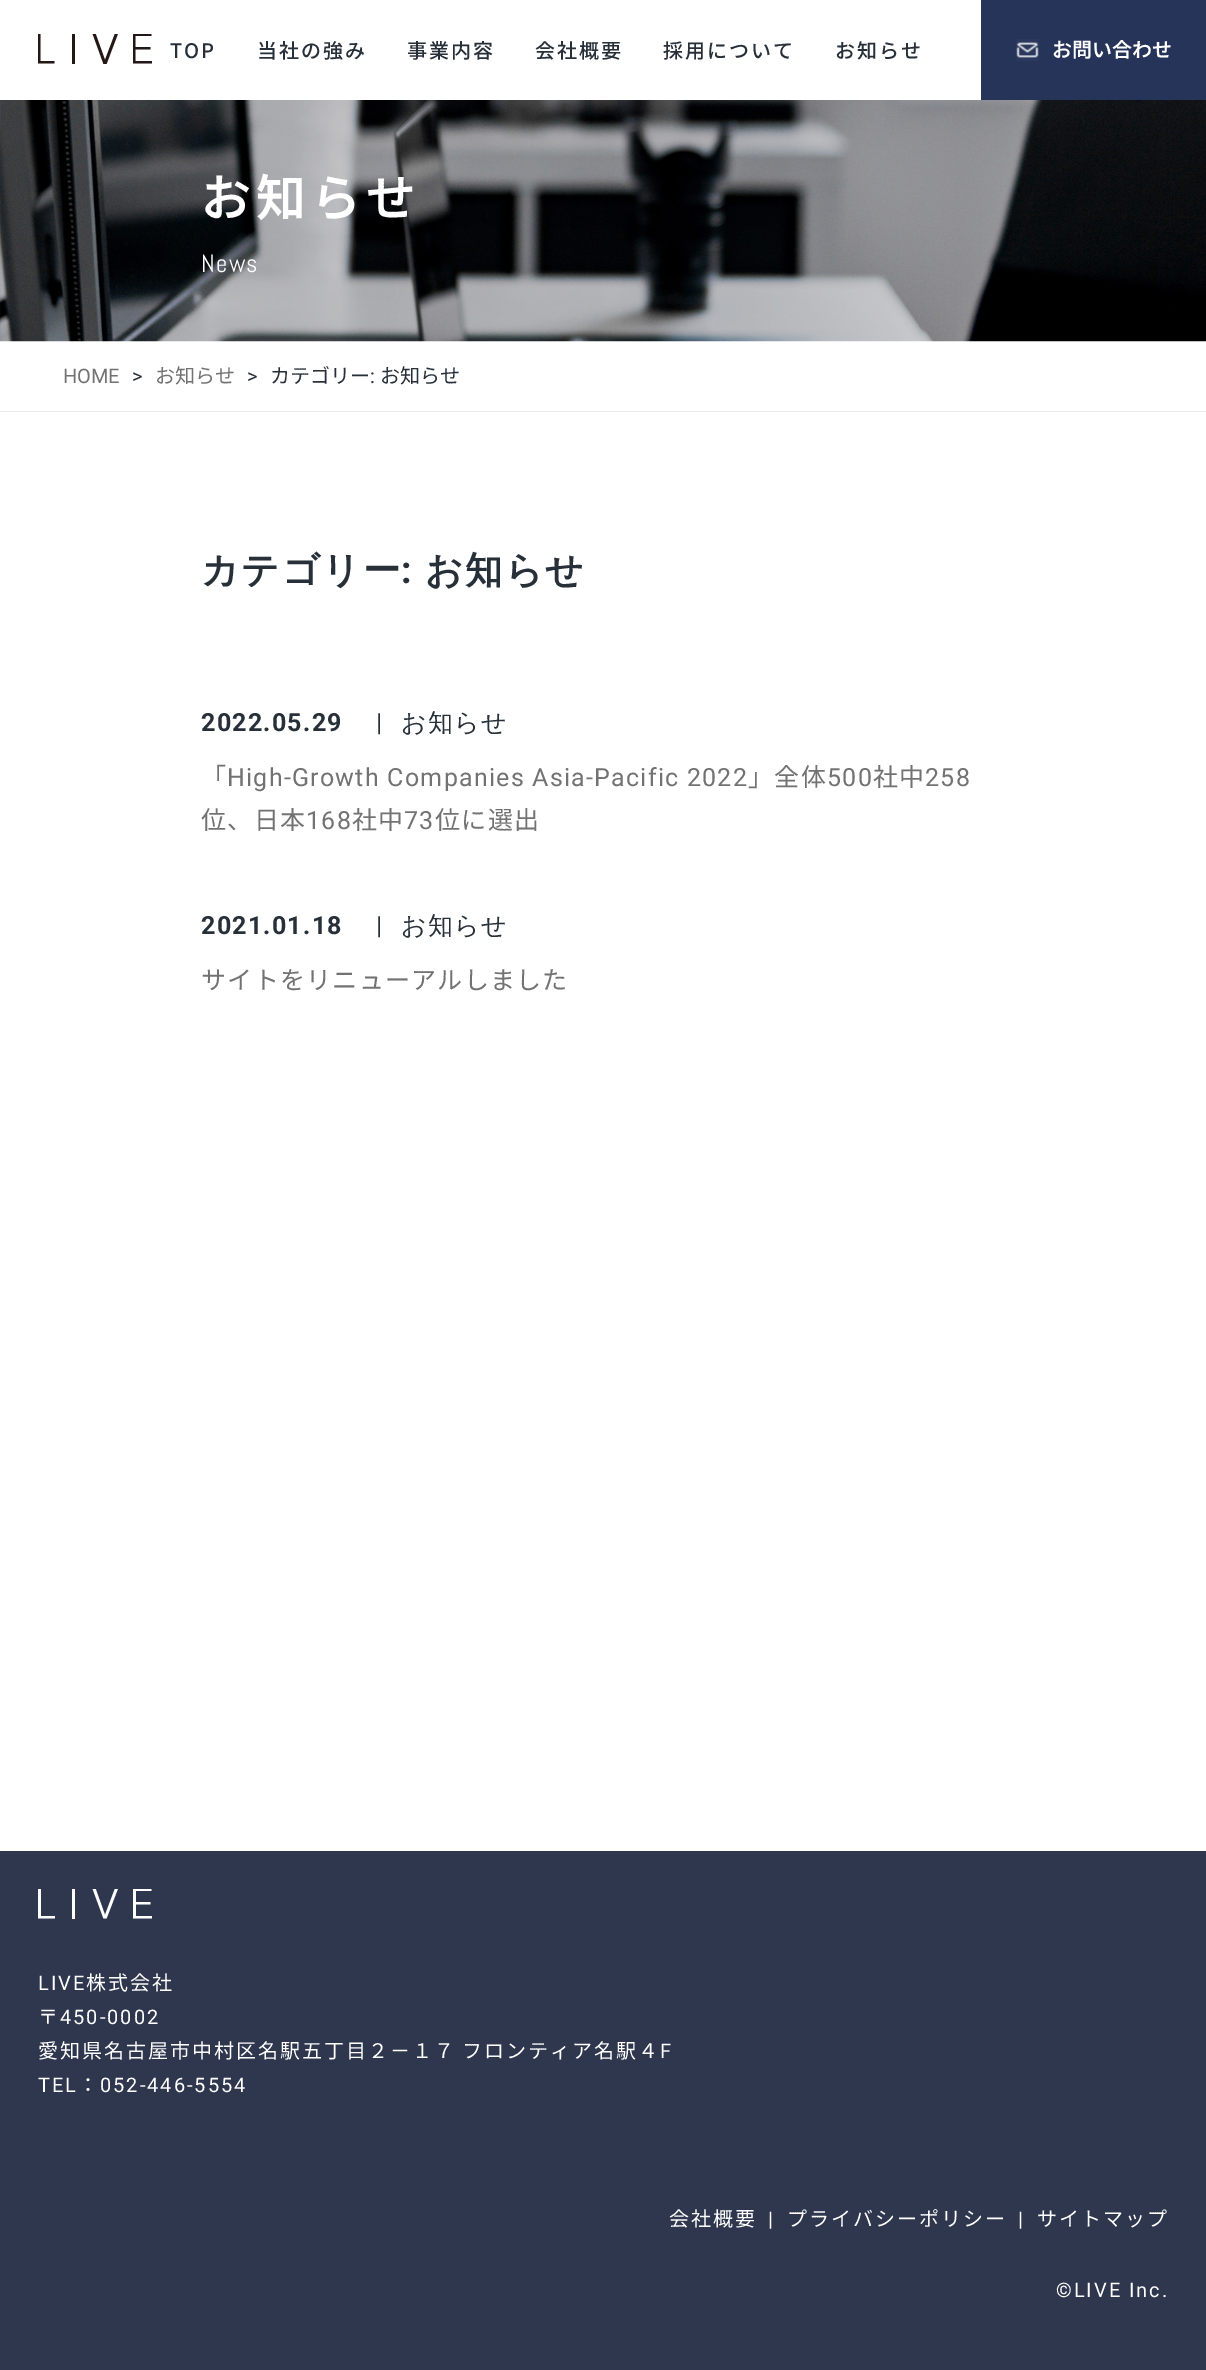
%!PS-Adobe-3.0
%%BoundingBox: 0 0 1206 2370
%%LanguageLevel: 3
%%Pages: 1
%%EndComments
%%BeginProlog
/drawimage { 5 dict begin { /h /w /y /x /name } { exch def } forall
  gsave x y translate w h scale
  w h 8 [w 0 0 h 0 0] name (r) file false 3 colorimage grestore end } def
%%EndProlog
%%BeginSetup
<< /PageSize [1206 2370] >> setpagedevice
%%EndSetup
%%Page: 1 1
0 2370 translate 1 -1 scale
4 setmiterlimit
1 setgray
0 0 1206 2370 rectfill
gsave
38 34 115 30 rectclip
0.137 0.094 0.082 setrgbcolor
newpath 37.5 33.5 moveto 40.5 33.5 lineto 40.5 61 lineto 54.5 61 lineto 54.5 63.5 lineto 37.5 63.5 lineto closepath fill
grestore
0.137 0.094 0.082 setrgbcolor
72 34 3 30 rectfill
gsave
38 34 115 30 rectclip
newpath 92.5 33.5 moveto 95.5 33.5 lineto 105 60 lineto 115 33.5 lineto 118 33.5 lineto 106.5 64 lineto 103.5 64 lineto closepath 133 33.5 moveto 151.5 33.5 lineto 151.5 36 lineto 135.5 36 lineto 135.5 47 lineto 150.5 47 lineto 150.5 49.5 lineto 135.5 49.5 lineto 135.5 61 lineto 152 61 lineto 152 63.5 lineto 133 63.5 lineto closepath fill
grestore
0.153 0.204 0.353 setrgbcolor
981 0 225 100 rectfill
(images/1.raw) 1016 39 23 22 drawimage
(images/2.raw) 0 100 1206 242 drawimage
0.922 setgray
0 411 1206 1 rectfill
0.184 0.216 0.306 setrgbcolor
0 1851 1206 519 rectfill
gsave
38 1889 115 30 rectclip
1 setgray
newpath 38 1888.5 moveto 41 1888.5 lineto 41 1916 lineto 55 1916 lineto 55 1918.5 lineto 38 1918.5 lineto closepath fill
grestore
1 setgray
72 1889 3 30 rectfill
gsave
38 1889 115 30 rectclip
newpath 92.5 1888.5 moveto 95.5 1888.5 lineto 105 1915 lineto 115 1888.5 lineto 118 1888.5 lineto 106.5 1918.5 lineto 103.5 1918.5 lineto closepath 133 1888.5 moveto 151.5 1888.5 lineto 151.5 1891 lineto 136 1891 lineto 136 1902 lineto 150.5 1902 lineto 150.5 1904.5 lineto 136 1904.5 lineto 136 1916 lineto 152 1916 lineto 152 1918.5 lineto 133 1918.5 lineto closepath fill
grestore
/NotoSansJP-Medium [20 0 0 -20 0 0] selectfont
0.153 0.188 0.224 setrgbcolor
170 58 moveto 2 0 (TOP) ashow
257 58 moveto 2 0 (当社の強み) ashow
407 58 moveto 2 0 (事業内容) ashow
535 58 moveto 2 0 (会社概要) ashow
663 58 moveto 2 0 (採用について) ashow
835 58 moveto 2 0 (お知らせ) ashow
/NotoSansJP-SemiBold [20 0 0 -20 0 0] selectfont
1 setgray
1052 57 moveto (お問い合わせ) show
/NotoSansJP-SemiBold [50 0 0 -50 0 0] selectfont
201 216 moveto 5 0 (お知らせ) ashow
/Abel-Regular [25 0 0 -25 0 0] selectfont
201 272 moveto 1.25 0 (News) ashow
/Roboto-Regular [20 0 0 -20 0 0] selectfont
0.447 setgray
63 383 moveto (HOME) show
0.153 0.188 0.224 setrgbcolor
132 383 moveto (>) show
/NotoSansJP-Regular [20 0 0 -20 0 0] selectfont
0.447 setgray
155 383 moveto (お知らせ) show
/Roboto-Regular [20 0 0 -20 0 0] selectfont
0.153 0.188 0.224 setrgbcolor
247 383 moveto (>) show
/NotoSansJP-Regular [20 0 0 -20 0 0] selectfont
270 383 moveto (カテゴリー) show
/Roboto-Regular [20 0 0 -20 0 0] selectfont
370 383 moveto (:) show
/NotoSansJP-Regular [20 0 0 -20 0 0] selectfont
380 383 moveto (お知らせ) show
/WenQuanYiZenHei-Bold [37.5 0 0 -37.5 0 0] selectfont
201 583 moveto 2 0 (カテゴリー) ashow
/Roboto-Bold [37.5 0 0 -37.5 0 0] selectfont
401 583 moveto 2 0 (:) ashow
/WenQuanYiZenHei-Bold [37.5 0 0 -37.5 0 0] selectfont
425 583 moveto 2 0 (お知らせ) ashow
/Roboto-Bold [25 0 0 -25 0 0] selectfont
201 731 moveto 1.25 0 (2022.05.29) ashow
/Roboto-Regular [25 0 0 -25 0 0] selectfont
376 731 moveto 1.25 0 (|) ashow
/WenQuanYiZenHei-Medium [25 0 0 -25 0 0] selectfont
401 731 moveto 1.25 0 (お知らせ) ashow
/NotoSansJP-Regular [25 0 0 -25 0 0] selectfont
0.447 setgray
201 786 moveto 1.25 0 (「) ashow
/Roboto-Regular [25 0 0 -25 0 0] selectfont
227 786 moveto 1.25 0 (High-Growth Companies Asia-Pacific 2022) ashow
/NotoSansJP-Regular [25 0 0 -25 0 0] selectfont
748 786 moveto 1.25 0 (」全体) ashow
/Roboto-Regular [25 0 0 -25 0 0] selectfont
827 786 moveto 1.25 0 (500) ashow
/NotoSansJP-Regular [25 0 0 -25 0 0] selectfont
873 786 moveto 1.25 0 (社中) ashow
/Roboto-Regular [25 0 0 -25 0 0] selectfont
925 786 moveto 1.25 0 (258) ashow
/NotoSansJP-Regular [25 0 0 -25 0 0] selectfont
201 829 moveto 1.25 0 (位、日本) ashow
/Roboto-Regular [25 0 0 -25 0 0] selectfont
306 829 moveto 1.25 0 (168) ashow
/NotoSansJP-Regular [25 0 0 -25 0 0] selectfont
352 829 moveto 1.25 0 (社中) ashow
/Roboto-Regular [25 0 0 -25 0 0] selectfont
404 829 moveto 1.25 0 (73) ashow
/NotoSansJP-Regular [25 0 0 -25 0 0] selectfont
435 829 moveto 1.25 0 (位に選出) ashow
/Roboto-Bold [25 0 0 -25 0 0] selectfont
0.153 0.188 0.224 setrgbcolor
201 934 moveto 1.25 0 (2021.01.18) ashow
/Roboto-Regular [25 0 0 -25 0 0] selectfont
376 934 moveto 1.25 0 (|) ashow
/WenQuanYiZenHei-Medium [25 0 0 -25 0 0] selectfont
401 934 moveto 1.25 0 (お知らせ) ashow
/NotoSansJP-Regular [25 0 0 -25 0 0] selectfont
0.447 setgray
201 989 moveto 1.25 0 (サイトをリニューアルしました) ashow
/Roboto-Regular [20 0 0 -20 0 0] selectfont
1 setgray
38 1990 moveto 2 0 (LIVE) ashow
/NotoSansJP-Regular [20 0 0 -20 0 0] selectfont
86 1990 moveto 2 0 (株式会社) ashow
38 2024 moveto 2 0 (〒) ashow
/Roboto-Regular [20 0 0 -20 0 0] selectfont
60 2024 moveto 2 0 (450-0002) ashow
/NotoSansJP-Regular [20 0 0 -20 0 0] selectfont
38 2058 moveto 2 0 (愛知県名古屋市中村区名駅五丁目２－１７ フロンティア名駅４) ashow
/Roboto-Regular [20 0 0 -20 0 0] selectfont
660 2058 moveto 2 0 (F) ashow
38 2092 moveto 2 0 (TEL) ashow
/NotoSansJP-Regular [20 0 0 -20 0 0] selectfont
78 2092 moveto 2 0 (：) ashow
/Roboto-Regular [20 0 0 -20 0 0] selectfont
100 2092 moveto 2 0 (052-446-5554) ashow
/NotoSansJP-Regular [20 0 0 -20 0 0] selectfont
669 2226 moveto 2 0 (会社概要) ashow
/Roboto-Regular [20 0 0 -20 0 0] selectfont
768 2226 moveto 2 0 (|) ashow
/NotoSansJP-Regular [20 0 0 -20 0 0] selectfont
787 2226 moveto 2 0 (プライバシーポリシー) ashow
/Roboto-Regular [20 0 0 -20 0 0] selectfont
1018 2226 moveto 2 0 (|) ashow
/NotoSansJP-Regular [20 0 0 -20 0 0] selectfont
1037 2226 moveto 2 0 (サイトマップ) ashow
/Roboto-Regular [20 0 0 -20 0 0] selectfont
1056 2297 moveto 2 0 (©LIVE Inc.) ashow
showpage
%%EOF
